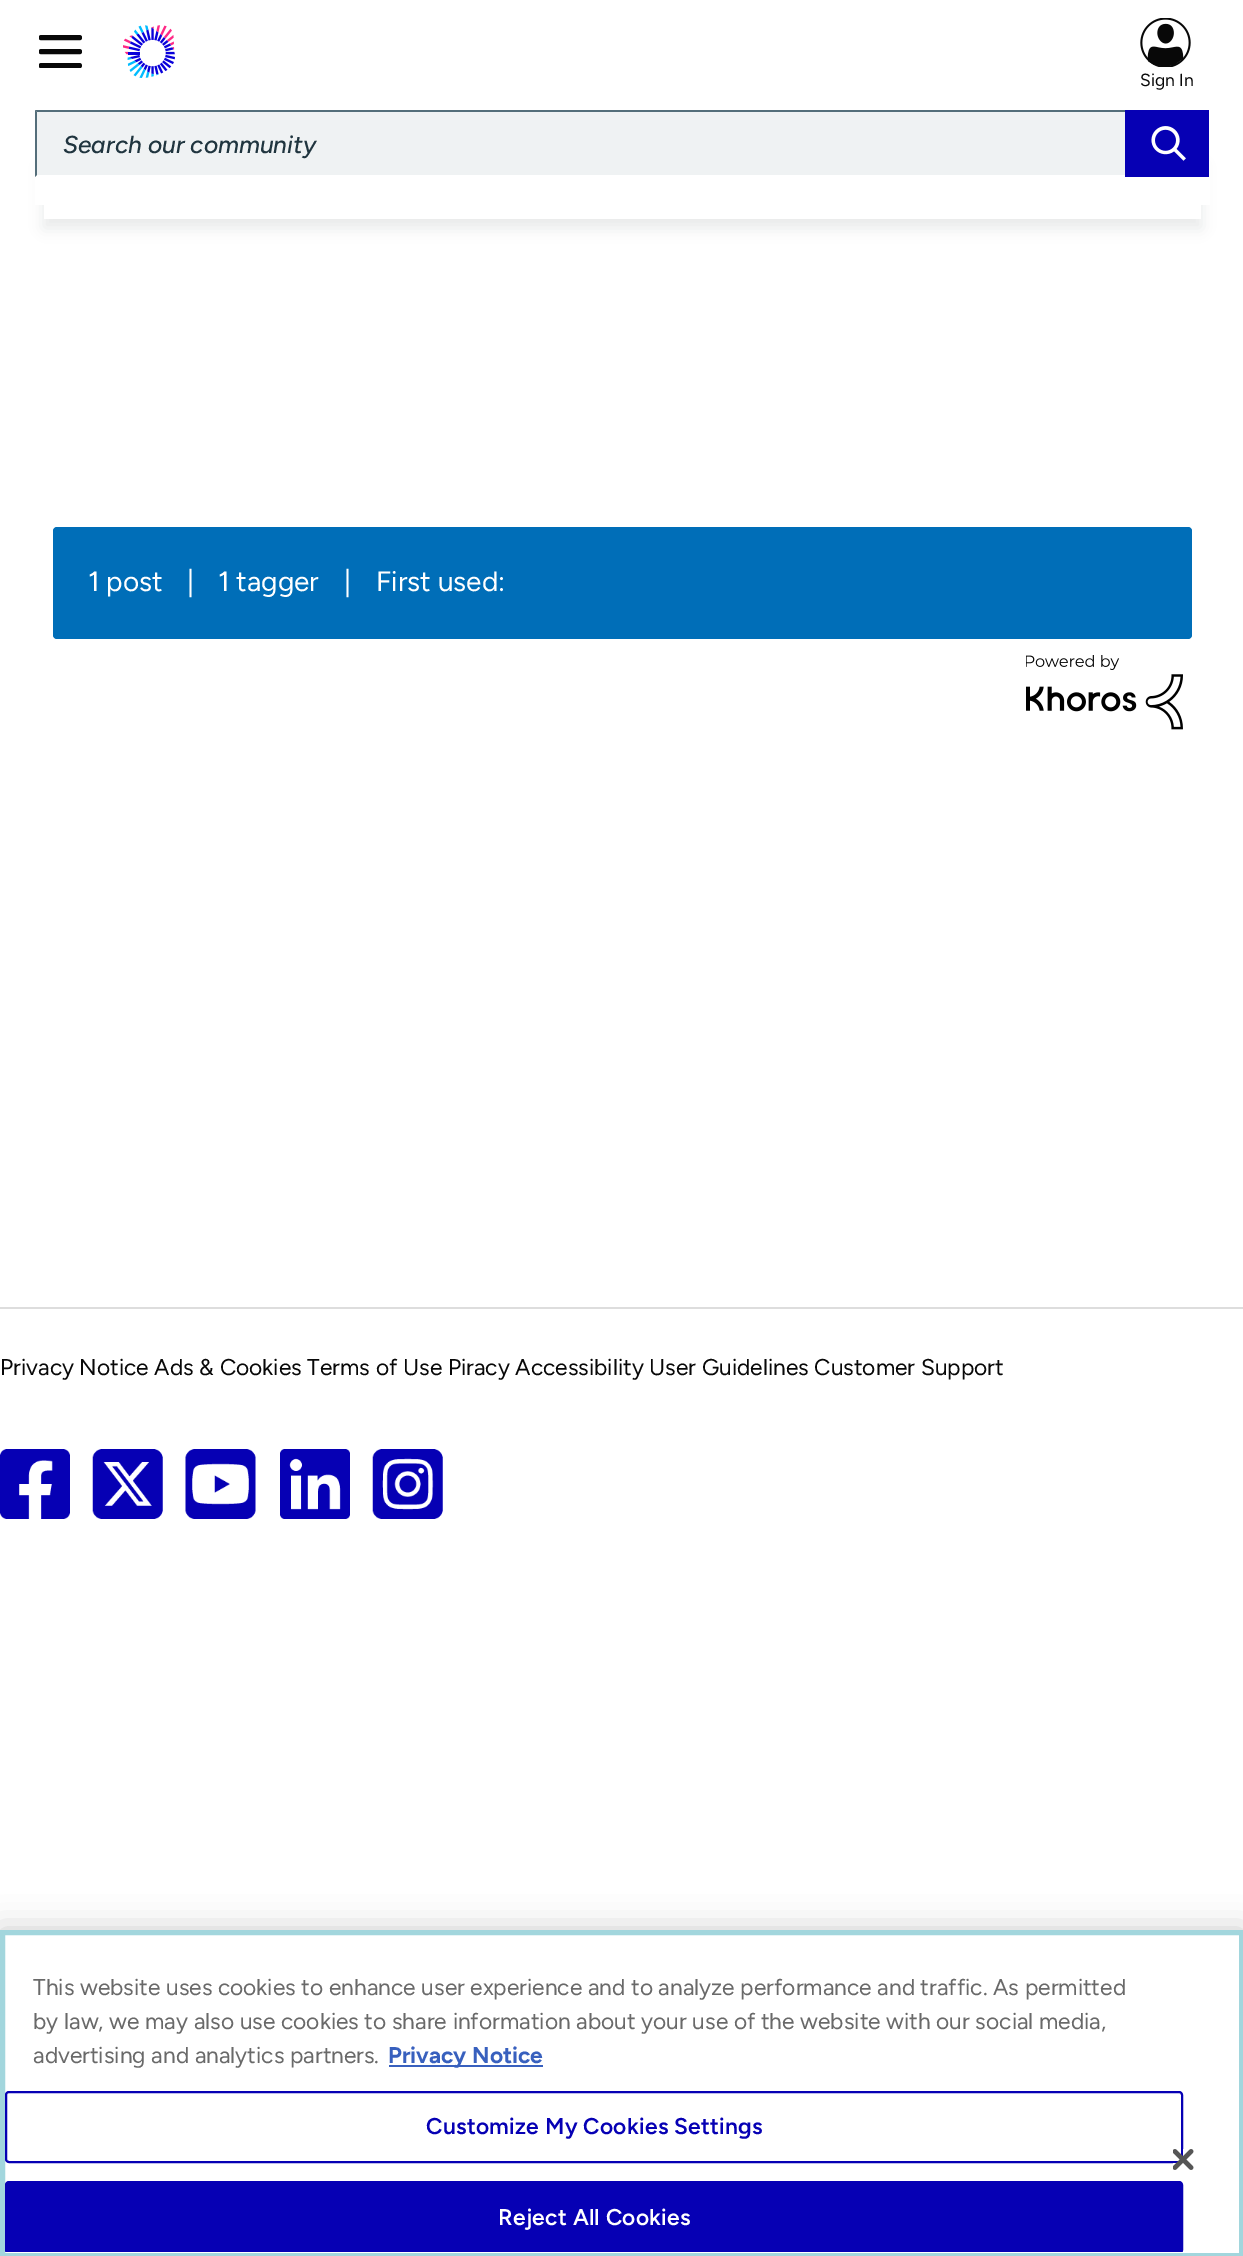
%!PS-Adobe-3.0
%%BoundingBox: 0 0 1243 2256
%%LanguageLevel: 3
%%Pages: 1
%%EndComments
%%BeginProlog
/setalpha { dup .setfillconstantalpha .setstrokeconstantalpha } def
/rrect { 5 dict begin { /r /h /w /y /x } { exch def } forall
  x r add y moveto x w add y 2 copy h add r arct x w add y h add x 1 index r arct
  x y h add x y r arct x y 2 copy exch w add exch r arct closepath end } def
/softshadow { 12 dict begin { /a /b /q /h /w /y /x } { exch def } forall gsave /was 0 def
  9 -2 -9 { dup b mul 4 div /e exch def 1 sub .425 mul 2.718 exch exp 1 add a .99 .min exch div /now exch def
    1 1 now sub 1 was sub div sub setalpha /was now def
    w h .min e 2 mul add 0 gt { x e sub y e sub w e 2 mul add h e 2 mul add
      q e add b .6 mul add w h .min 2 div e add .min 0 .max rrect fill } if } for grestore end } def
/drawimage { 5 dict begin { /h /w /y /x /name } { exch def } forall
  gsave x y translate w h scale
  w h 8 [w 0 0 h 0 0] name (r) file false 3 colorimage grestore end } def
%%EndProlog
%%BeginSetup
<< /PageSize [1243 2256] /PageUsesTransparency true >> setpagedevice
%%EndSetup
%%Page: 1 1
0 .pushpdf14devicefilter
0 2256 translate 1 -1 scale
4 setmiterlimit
1 setgray
0 0 1243 2256 rectfill
(images/1.raw) 1140 18 51 49 drawimage
gsave
newpath 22 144 moveto 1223 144 lineto 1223 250 lineto 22 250 lineto closepath 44 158 moveto 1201 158 lineto 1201 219 lineto 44 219 lineto closepath eoclip newpath
0.078 0.165 0.208 setrgbcolor
44 166 1157 62 0 7 0.1 softshadow
grestore
35 161 1175 44 rectfill
(images/2.raw) 39 35 43 33 drawimage
(images/3.raw) 123 25 52 53 drawimage
0.937 0.949 0.953 setrgbcolor
35 110 1090 67 rectfill
0.329 0.431 0.478 setrgbcolor
newpath 37 112 moveto 35 110 lineto 1205 110 lineto 1208 112 lineto 1206 113 lineto 1204 112 lineto closepath fill
1 setgray
newpath 1205 177 moveto 35 177 lineto 37 175 lineto 1204 175 lineto 1207 174 lineto 1208 175 lineto closepath fill
0.329 0.431 0.478 setrgbcolor
newpath 35 177 moveto 37 175 lineto 37 112 lineto 35 110 lineto closepath fill
0.024 0 0.706 setrgbcolor
1125 110 84 67 rectfill
(images/4.raw) 1151 126 35 35 drawimage
0.867 setgray
0 1307 1243 2 rectfill
0 0.431 0.722 setrgbcolor
53 527 1139 112 4 rrect fill
(images/5.raw) 1026 655 157 75 drawimage
(images/6.raw) 0 1449 70 70 drawimage
(images/7.raw) 92 1449 71 70 drawimage
(images/8.raw) 185 1449 71 70 drawimage
(images/9.raw) 280 1449 70 70 drawimage
(images/10.raw) 372 1449 71 70 drawimage
0 setgray
0 1930 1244 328 0 16 0.2 softshadow
1 setgray
newpath 2.5 1932.5 moveto 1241.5 1932.5 lineto 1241.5 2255.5 lineto 2.5 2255.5 lineto closepath gsave fill grestore
0.635 0.839 0.867 setrgbcolor
5 setlinewidth
stroke
0.22 0.376 0.745 setrgbcolor
389 2065 154 2 rectfill
0.024 0 0.706 setrgbcolor
2 setlinewidth
6 2092 1176 70 3 rrect stroke
gsave
5 1936 1234 316 rectclip
6 2182 1176 71 3 rrect gsave fill grestore
stroke
grestore
(images/11.raw) 1173 2149 21 21 drawimage
/Figtree-Regular [17.5 0 0 -17.5 0 0] selectfont
0.031 setgray
1140 86 moveto (Sign In) show
/Figtree-MediumItalic [24.5 0 0 -24.5 0 0] selectfont
0.125 0.208 0.247 setrgbcolor
63 153 moveto (Search our community) show
/Figtree-Regular [28 0 0 -28 0 0] selectfont
1 setgray
88 591 moveto (1 post) show
187 591 moveto (|) show
218 591 moveto (1 tagger) show
344 591 moveto (|) show
376 591 moveto (First used:) show
/Figtree-Regular [22.75 0 0 -22.75 0 0] selectfont
0.031 setgray
0 1375 moveto (Privacy Notice Ads & Cookies Terms of Use Piracy Accessibility User Guidelines Customer Support) show
0.412 setgray
33 1995 moveto (This website uses cookies to enhance user experience and to analyze performance and traffic. As permitted) show
33 2029 moveto (by law, we may also use cookies to share information about your use of the website with our social media,) show
33 2063 moveto (advertising and analytics partners.) show
/Figtree-Bold [22.75 0 0 -22.75 0 0] selectfont
0.22 0.376 0.745 setrgbcolor
388 2063 moveto (Privacy Notice) show
/Figtree-SemiBold [22.75 0 0 -22.75 0 0] selectfont
0.024 0 0.706 setrgbcolor
426 2134 moveto 0.25 0 (Customize My Cookies Settings) ashow
1 setgray
498 2225 moveto 0.25 0 (Reject All Cookies) ashow
.poppdf14devicefilter showpage
%%EOF
